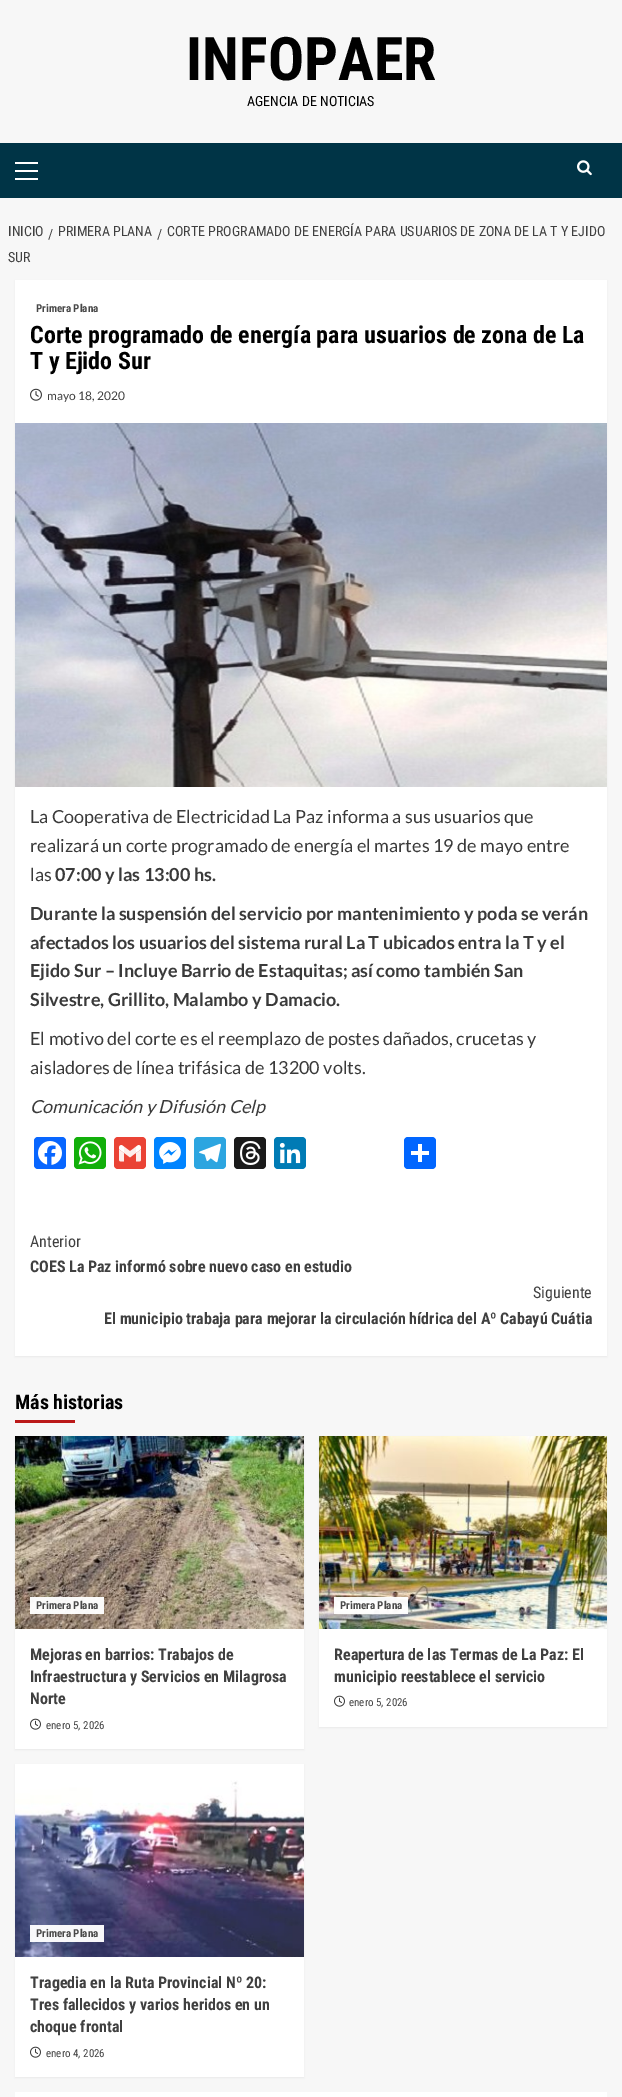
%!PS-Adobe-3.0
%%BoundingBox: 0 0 622 2097
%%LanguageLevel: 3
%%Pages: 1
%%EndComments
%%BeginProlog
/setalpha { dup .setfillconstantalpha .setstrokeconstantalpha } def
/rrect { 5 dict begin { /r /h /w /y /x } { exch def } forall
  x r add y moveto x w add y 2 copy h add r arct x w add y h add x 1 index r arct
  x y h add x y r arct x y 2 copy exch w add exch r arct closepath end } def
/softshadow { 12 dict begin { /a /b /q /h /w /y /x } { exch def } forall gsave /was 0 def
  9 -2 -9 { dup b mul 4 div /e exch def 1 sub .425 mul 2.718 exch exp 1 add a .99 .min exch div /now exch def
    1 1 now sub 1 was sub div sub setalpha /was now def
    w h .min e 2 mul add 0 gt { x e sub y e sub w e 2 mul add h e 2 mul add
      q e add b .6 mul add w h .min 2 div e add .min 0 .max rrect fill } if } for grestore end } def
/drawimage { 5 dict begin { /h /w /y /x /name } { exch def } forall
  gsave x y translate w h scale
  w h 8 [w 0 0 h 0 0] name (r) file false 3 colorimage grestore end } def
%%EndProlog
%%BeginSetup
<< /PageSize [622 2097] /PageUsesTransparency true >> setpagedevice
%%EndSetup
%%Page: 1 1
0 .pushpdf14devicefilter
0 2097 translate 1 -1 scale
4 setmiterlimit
0.969 setgray
0 0 622 2097 rectfill
0 0.204 0.275 setrgbcolor
0 143 622 55 rectfill
1 setgray
15 170 23 2 rectfill
15 162 23 2 rectfill
15 178 23 2 rectfill
(images/1.raw) 577 160 15 16 drawimage
0 setgray
15 281 592 1076 0 1 0.05 softshadow
1 setgray
15 280 592 1076 rectfill
(images/2.raw) 30 388 12 13 drawimage
(images/3.raw) 15 423 592 364 drawimage
0.031 0.4 1 setrgbcolor
34 1137 32 32 4 rrect fill
(images/4.raw) 38 1141 24 24 drawimage
0.071 0.686 0.039 setrgbcolor
74 1137 32 32 4 rrect fill
(images/5.raw) 78 1141 24 24 drawimage
0.918 0.263 0.208 setrgbcolor
114 1137 32 32 4 rrect fill
(images/6.raw) 119 1145 22 17 drawimage
0 0.518 1 setrgbcolor
154 1137 32 32 4 rrect fill
(images/7.raw) 159 1142 22 22 drawimage
0.173 0.647 0.878 setrgbcolor
194 1137 32 32 4 rrect fill
(images/8.raw) 199 1143 22 20 drawimage
0.102 setgray
234 1137 32 32 4 rrect fill
(images/9.raw) 240 1141 21 24 drawimage
0 0.482 0.71 setrgbcolor
274 1137 32 32 4 rrect fill
(images/10.raw) 279 1142 22 22 drawimage
0.004 0.4 1 setrgbcolor
404 1137 32 32 4 rrect fill
1 setgray
418 1144 4 18 rectfill
411 1151 18 4 rectfill
0.733 0.098 0.098 setrgbcolor
15 1420 60 3 rectfill
0 setgray
15 1437 289 313 0 1 0.05 softshadow
1 setgray
15 1629 289 120 rectfill
(images/11.raw) 15 1436 289 193 drawimage
0.96 setalpha
30 1597 74 17 rectfill
1 setalpha
(images/12.raw) 30 1718 11 12 drawimage
0 setgray
319 1437 288 291 0 1 0.05 softshadow
1 setgray
319 1629 288 98 rectfill
(images/13.raw) 319 1436 288 193 drawimage
0.96 setalpha
334 1597 74 17 rectfill
1 setalpha
(images/12.raw) 334 1695 11 12 drawimage
0 setgray
15 1765 289 313 0 1 0.05 softshadow
1 setgray
15 1957 289 120 rectfill
(images/14.raw) 15 1764 289 193 drawimage
0.96 setalpha
30 1925 74 17 rectfill
1 setalpha
(images/12.raw) 30 2046 11 12 drawimage
15 2092 592 5 rectfill
/RobotoCondensed-Bold [60 0 0 -60 0 0] selectfont
0 setgray
186 80 moveto (INFOPAER) show
/RobotoCondensed-Regular [14 0 0 -14 0 0] selectfont
247 106 moveto (AGENCIA DE NOTICIAS) show
0.251 setgray
157 239 moveto (/) show
167 236 moveto (CORTE PROGRAMADO DE ENERGÍA PARA USUARIOS DE ZONA DE LA T Y EJIDO) show
8 262 moveto (SUR) show
8 236 moveto (INICIO) show
48 239 moveto (/) show
58 236 moveto (PRIMERA PLANA) show
/RobotoCondensed-Bold [11 0 0 -11 0 0] selectfont
0.282 setgray
36 312 moveto (Primera Plana) show
/RobotoCondensed-Bold [24 0 0 -24 0 0] selectfont
0 setgray
30 343 moveto (Corte programado de energía para usuarios de zona de La) show
30 369 moveto (T y Ejido Sur) show
/Lato-Regular [12 0 0 -12 0 0] selectfont
0.251 setgray
47 400 moveto (mayo 18, 2020) show
/Lato-Regular [18 0 0 -18 0 0] selectfont
0.227 setgray
30 823 moveto (La Cooperativa de Electricidad La Paz informa a sus usuarios que) show
30 852 moveto (realizará un corte programado de energía el martes 19 de mayo entre) show
30 881 moveto (las) show
/Lato-Bold [18 0 0 -18 0 0] selectfont
55 881 moveto (07:00 y las 13:00 hs.) show
30 920 moveto (Durante la suspensión del servicio por mantenimiento y poda se verán) show
30 949 moveto (afectados los usuarios del sistema rural La T ubicados entra la T y el) show
30 977 moveto (Ejido Sur – Incluye Barrio de Estaquitas; así como también San) show
30 1006 moveto (Silvestre, Grillito, Malambo y Damacio.) show
/Lato-Regular [18 0 0 -18 0 0] selectfont
30 1045 moveto (El motivo del corte es el reemplazo de postes dañados, crucetas y) show
30 1074 moveto (aisladores de línea trifásica de 13200 volts.) show
/Lato-Italic [18 0 0 -18 0 0] selectfont
30 1113 moveto (Comunicación y Difusión Celp) show
/RobotoCondensed-Regular [16 0 0 -16 0 0] selectfont
0.251 setgray
30 1247 moveto (Anterior) show
/RobotoCondensed-Bold [16 0 0 -16 0 0] selectfont
30 1272 moveto (COES La Paz informó sobre nuevo caso en estudio) show
/RobotoCondensed-Regular [16 0 0 -16 0 0] selectfont
533 1298 moveto (Siguiente) show
/RobotoCondensed-Bold [16 0 0 -16 0 0] selectfont
104 1324 moveto (El municipio trabaja para mejorar la circulación hídrica del Aº Cabayú Cuátia) show
/RobotoCondensed-Bold [20 0 0 -20 0 0] selectfont
0 setgray
15 1409 moveto (Más historias) show
/RobotoCondensed-Bold [11 0 0 -11 0 0] selectfont
0.282 setgray
36 1609 moveto (Primera Plana) show
/RobotoCondensed-Bold [16 0 0 -16 0 0] selectfont
0.251 setgray
30 1660 moveto (Mejoras en barrios: Trabajos de) show
30 1682 moveto (Infraestructura y Servicios en Milagrosa) show
30 1704 moveto (Norte) show
/RobotoCondensed-Regular [11 0 0 -11 0 0] selectfont
46 1729 moveto (enero 5, 2026) show
/RobotoCondensed-Bold [11 0 0 -11 0 0] selectfont
0.282 setgray
340 1609 moveto (Primera Plana) show
/RobotoCondensed-Bold [16 0 0 -16 0 0] selectfont
0.251 setgray
334 1660 moveto (Reapertura de las Termas de La Paz: El) show
334 1682 moveto (municipio reestablece el servicio) show
/RobotoCondensed-Regular [11 0 0 -11 0 0] selectfont
349 1706 moveto (enero 5, 2026) show
/RobotoCondensed-Bold [11 0 0 -11 0 0] selectfont
0.282 setgray
36 1937 moveto (Primera Plana) show
/RobotoCondensed-Bold [16 0 0 -16 0 0] selectfont
0.251 setgray
30 1988 moveto (Tragedia en la Ruta Provincial Nº 20:) show
30 2010 moveto (Tres fallecidos y varios heridos en un) show
30 2032 moveto (choque frontal) show
/RobotoCondensed-Regular [11 0 0 -11 0 0] selectfont
46 2057 moveto (enero 4, 2026) show
.poppdf14devicefilter showpage
%%EOF
